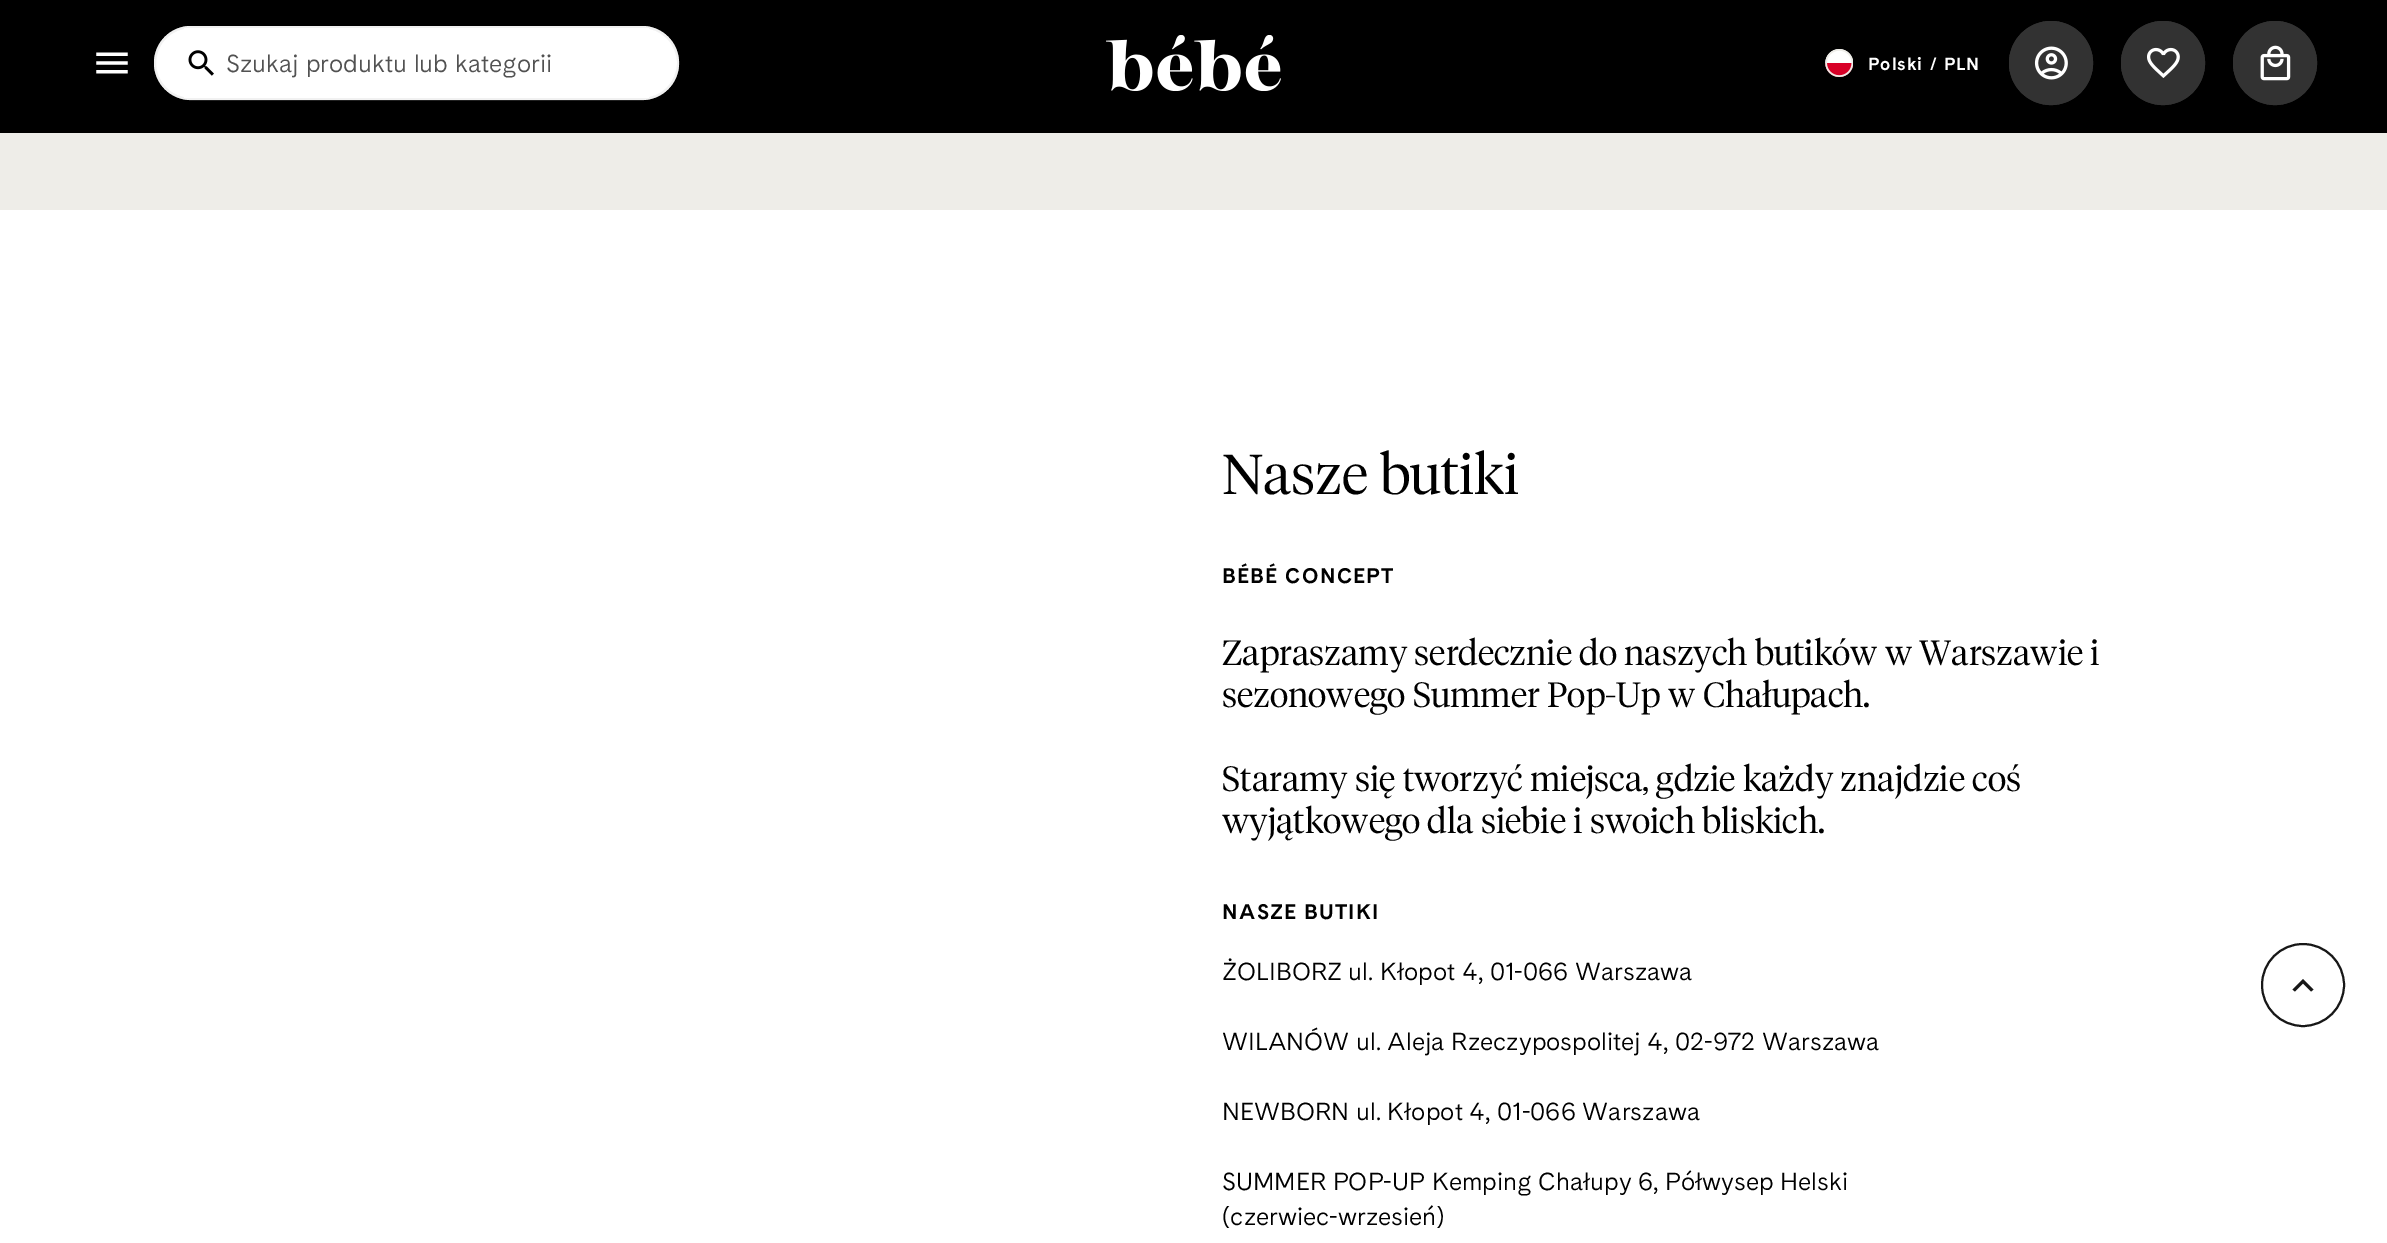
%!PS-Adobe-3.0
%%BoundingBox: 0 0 2387 1243
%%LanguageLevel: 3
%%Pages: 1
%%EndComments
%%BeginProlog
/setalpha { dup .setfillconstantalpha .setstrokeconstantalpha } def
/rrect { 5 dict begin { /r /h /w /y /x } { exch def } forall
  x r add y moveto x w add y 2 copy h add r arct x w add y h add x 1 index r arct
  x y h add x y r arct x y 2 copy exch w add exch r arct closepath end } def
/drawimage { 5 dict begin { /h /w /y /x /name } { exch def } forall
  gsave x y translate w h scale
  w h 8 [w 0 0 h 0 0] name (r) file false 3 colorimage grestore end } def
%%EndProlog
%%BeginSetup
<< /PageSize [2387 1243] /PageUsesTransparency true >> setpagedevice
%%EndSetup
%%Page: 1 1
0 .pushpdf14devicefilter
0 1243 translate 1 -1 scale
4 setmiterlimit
1 setgray
0 0 2387 1243 rectfill
0 setgray
0 0 2387 133 rectfill
(images/1.raw) 96 52 32 22 drawimage
1 setgray
154 26 525 74 37 rrect fill
0.55 setalpha
0.898 setgray
2 setlinewidth
155 27 523 72 36 rrect stroke
gsave
156 28 521 70 35 rrect clip newpath
1 setalpha
1 setgray
184 28 465 70 rectfill
grestore
1 setalpha
(images/2.raw) 188 50 26 26 drawimage
(images/3.raw) 1106 35 175 56 drawimage
(images/4.raw) 1825 49 28 28 drawimage
0.196 setgray
newpath 2051 63 42 0 360 arc closepath fill
(images/5.raw) 2034 46 34 34 drawimage
newpath 2051 63 41 0 360 arc closepath stroke
newpath 2163 63 42 0 360 arc closepath fill
(images/6.raw) 2147 47 33 31 drawimage
newpath 2163 63 41 0 360 arc closepath stroke
newpath 2275 63 42 0 360 arc closepath fill
(images/7.raw) 2260 45 31 36 drawimage
newpath 2275 63 41 0 360 arc closepath stroke
0.933 0.929 0.91 setrgbcolor
0 133 2387 77 rectfill
0.09 setgray
newpath 2311 991.5 moveto 2303 983.5 lineto 2295 991.5 lineto 2292.5 989.5 lineto 2303 979 lineto 2313.5 989.5 lineto closepath fill
newpath 2303 985 41 0 360 arc closepath stroke
/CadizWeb-Regular [24.5 0 0 -24.5 0 0] selectfont
0.322 setgray
226 72 moveto (Szukaj produktu lub kategorii) show
/CadizWeb-Bold [17.5 0 0 -17.5 0 0] selectfont
1 setgray
1868 70 moveto 1 0 (Polski / PLN) ashow
/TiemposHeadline-Light [56 0 0 -56 0 0] selectfont
0 setgray
1222 494 moveto (Nasze butiki) show
/CadizWeb-Bold [21 0 0 -21 0 0] selectfont
1222 583 moveto 1.25 0 (BÉBÉ CONCEPT) ashow
/TiemposHeadline-Light [35 0 0 -35 0 0] selectfont
1222 665 moveto (Zapraszamy serdecznie do naszych butików w Warszawie i) show
1222 707 moveto (sezonowego Summer Pop-Up w Chałupach.) show
1222 791 moveto (Staramy się tworzyć miejsca, gdzie każdy znajdzie coś) show
1222 833 moveto (wyjątkowego dla siebie i swoich bliskich.) show
/CadizWeb-Bold [21 0 0 -21 0 0] selectfont
1222 919 moveto 1.25 0 (NASZE BUTIKI) ashow
/CadizWeb-Regular [24.5 0 0 -24.5 0 0] selectfont
1222 980 moveto (ŻOLIBORZ ul. Kłopot 4, 01-066 Warszawa) show
1222 1050 moveto (WILANÓW ul. Aleja Rzeczypospolitej 4, 02-972 Warszawa) show
1222 1120 moveto (NEWBORN ul. Kłopot 4, 01-066 Warszawa) show
1222 1190 moveto (SUMMER POP-UP Kemping Chałupy 6, Półwysep Helski) show
1222 1225 moveto (\(czerwiec-wrzesień\)) show
.poppdf14devicefilter showpage
%%EOF
